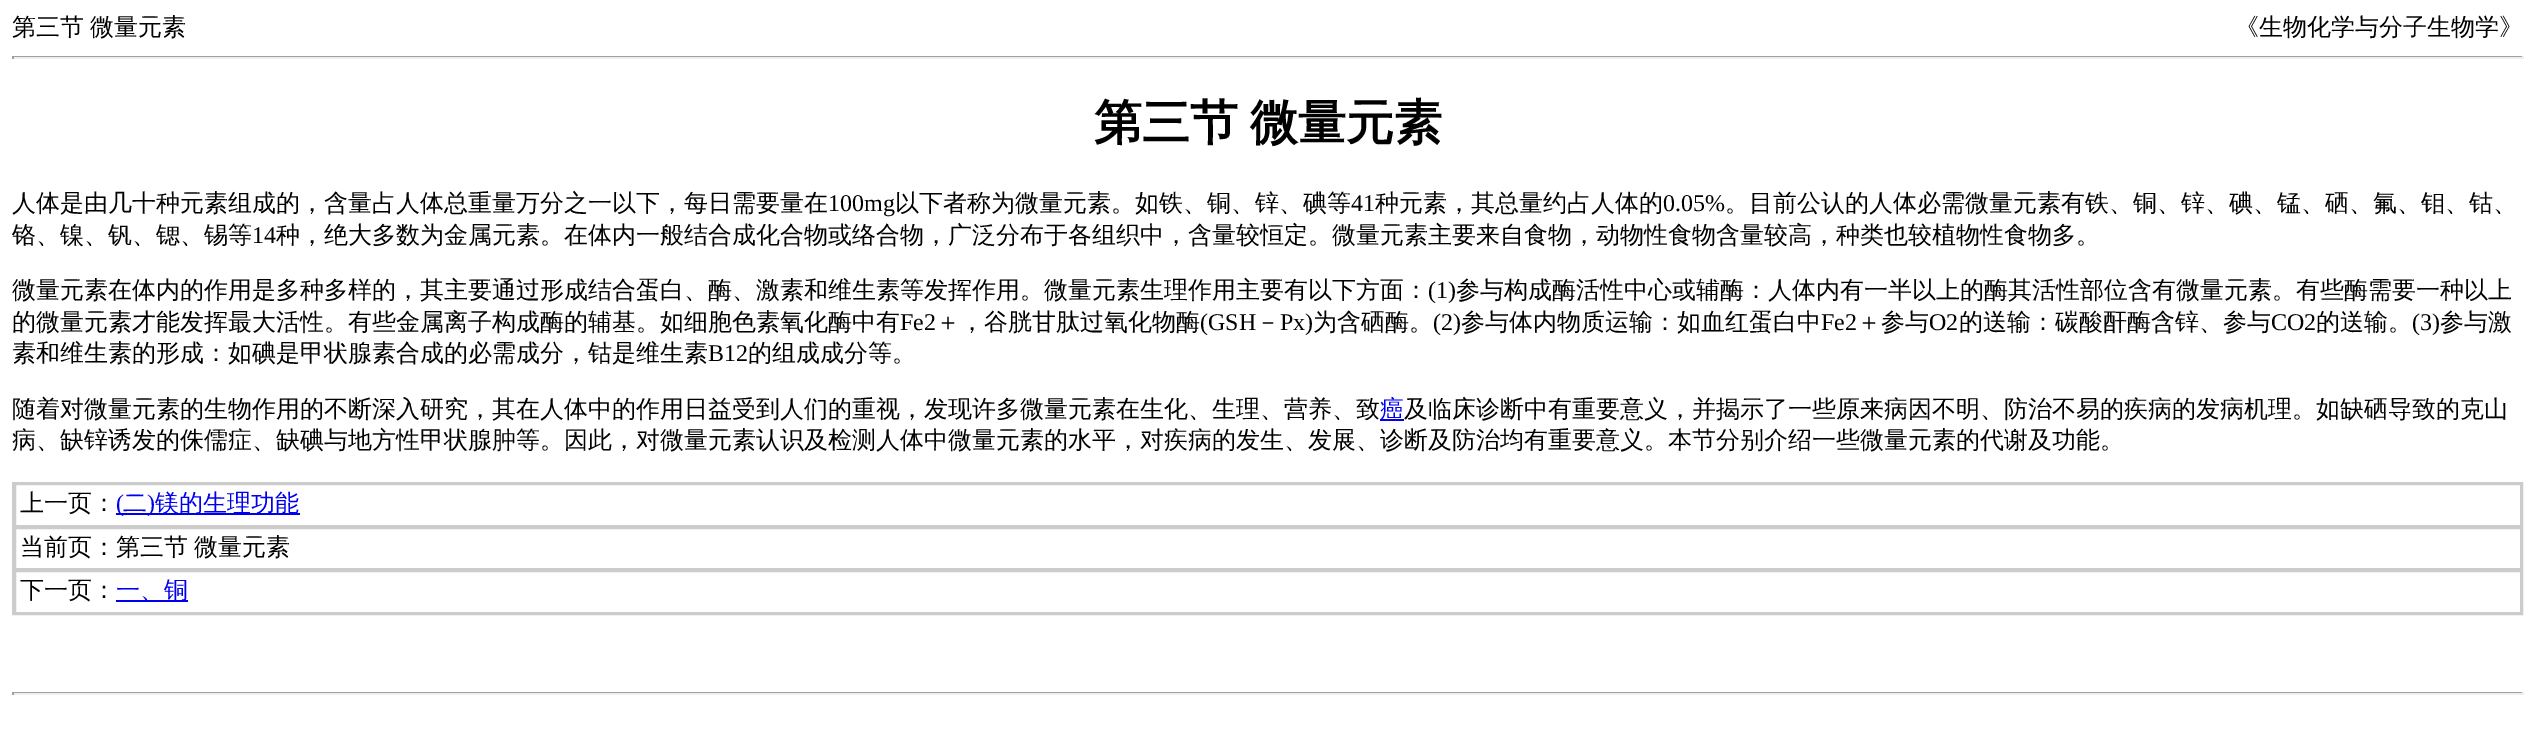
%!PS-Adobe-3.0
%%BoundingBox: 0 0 2535 730
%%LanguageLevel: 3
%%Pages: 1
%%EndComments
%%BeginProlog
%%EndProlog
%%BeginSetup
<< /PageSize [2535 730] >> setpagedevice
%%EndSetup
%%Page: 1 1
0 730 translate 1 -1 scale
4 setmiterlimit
1 setgray
0 0 2535 730 rectfill
0.624 setgray
12 56 2511 1 rectfill
0.933 setgray
2522 56 2 3 rectfill
12 57 2511 2 rectfill
0.624 setgray
12 56 2 3 rectfill
0 0 0.933 setrgbcolor
1380 419 24 2 rectfill
0.8 setgray
2 setlinewidth
13 483 2509 131 rectstroke
15 484 2506 42 rectstroke
0 0 0.933 setrgbcolor
116 513 184 2 rectfill
0.8 setgray
15 528 2506 41 rectstroke
15 571 2506 42 rectstroke
0 0 0.933 setrgbcolor
116 600 72 2 rectfill
0.624 setgray
12 692 2511 1 rectfill
0.933 setgray
2522 692 2 3 rectfill
12 693 2511 2 rectfill
0.624 setgray
12 692 2 3 rectfill
/WenQuanYiZenHei-Medium [24 0 0 -24 0 0] selectfont
0 setgray
12 35 moveto -1 0 32 (第三节 微量元素) widthshow
2235 35 moveto (《生物化学与分子生物学》) show
/WenQuanYiZenHei-Bold [48 0 0 -48 0 0] selectfont
1094 139 moveto -2 0 32 (第三节 微量元素) widthshow
/WenQuanYiZenHei-Medium [24 0 0 -24 0 0] selectfont
12 211 moveto (人体是由几十种元素组成的，含量占人体总重量万分之一以下，每日需要量在) show
/LiberationSerif-Regular [24 0 0 -24 0 0] selectfont
828 211 moveto (100mg) show
/WenQuanYiZenHei-Medium [24 0 0 -24 0 0] selectfont
895 211 moveto (以下者称为微量元素。如铁、铜、锌、碘等) show
/LiberationSerif-Regular [24 0 0 -24 0 0] selectfont
1351 211 moveto (41) show
/WenQuanYiZenHei-Medium [24 0 0 -24 0 0] selectfont
1375 211 moveto (种元素，其总量约占人体的) show
/LiberationSerif-Regular [24 0 0 -24 0 0] selectfont
1663 211 moveto (0.05%) show
/WenQuanYiZenHei-Medium [24 0 0 -24 0 0] selectfont
1725 211 moveto (。目前公认的人体必需微量元素有铁、铜、锌、碘、锰、硒、氟、钼、钴、) show
12 243 moveto (铬、镍、钒、锶、锡等) show
/LiberationSerif-Regular [24 0 0 -24 0 0] selectfont
252 243 moveto (14) show
/WenQuanYiZenHei-Medium [24 0 0 -24 0 0] selectfont
276 243 moveto (种，绝大多数为金属元素。在体内一般结合成化合物或络合物，广泛分布于各组织中，含量较恒定。微量元素主要来自食物，动物性食物含量较高，种类也较植物性食物多。) show
12 298 moveto (微量元素在体内的作用是多种多样的，其主要通过形成结合蛋白、酶、激素和维生素等发挥作用。微量元素生理作用主要有以下方面：) show
/LiberationSerif-Regular [24 0 0 -24 0 0] selectfont
1428 298 moveto (\(1\)) show
/WenQuanYiZenHei-Medium [24 0 0 -24 0 0] selectfont
1456 298 moveto (参与构成酶活性中心或辅酶：人体内有一半以上的酶其活性部位含有微量元素。有些酶需要一种以上) show
12 330 moveto (的微量元素才能发挥最大活性。有些金属离子构成酶的辅基。如细胞色素氧化酶中有) show
/LiberationSerif-Regular [24 0 0 -24 0 0] selectfont
900 330 moveto (Fe2) show
/WenQuanYiZenHei-Medium [24 0 0 -24 0 0] selectfont
936 330 moveto (＋，谷胱甘肽过氧化物酶) show
/LiberationSerif-Regular [24 0 0 -24 0 0] selectfont
1200 330 moveto (\(GSH) show
/WenQuanYiZenHei-Medium [24 0 0 -24 0 0] selectfont
1256 330 moveto (－) show
/LiberationSerif-Regular [24 0 0 -24 0 0] selectfont
1280 330 moveto (Px\)) show
/WenQuanYiZenHei-Medium [24 0 0 -24 0 0] selectfont
1313 330 moveto (为含硒酶。) show
/LiberationSerif-Regular [24 0 0 -24 0 0] selectfont
1433 330 moveto (\(2\)) show
/WenQuanYiZenHei-Medium [24 0 0 -24 0 0] selectfont
1461 330 moveto (参与体内物质运输：如血红蛋白中) show
/LiberationSerif-Regular [24 0 0 -24 0 0] selectfont
1821 330 moveto (Fe2) show
/WenQuanYiZenHei-Medium [24 0 0 -24 0 0] selectfont
1857 330 moveto (＋参与) show
/LiberationSerif-Regular [24 0 0 -24 0 0] selectfont
1929 330 moveto (O2) show
/WenQuanYiZenHei-Medium [24 0 0 -24 0 0] selectfont
1959 330 moveto (的送输：碳酸酐酶含锌、参与) show
/LiberationSerif-Regular [24 0 0 -24 0 0] selectfont
2271 330 moveto (CO2) show
/WenQuanYiZenHei-Medium [24 0 0 -24 0 0] selectfont
2316 330 moveto (的送输。) show
/LiberationSerif-Regular [24 0 0 -24 0 0] selectfont
2412 330 moveto (\(3\)) show
/WenQuanYiZenHei-Medium [24 0 0 -24 0 0] selectfont
2440 330 moveto (参与激) show
12 361 moveto (素和维生素的形成：如碘是甲状腺素合成的必需成分，钴是维生素) show
/LiberationSerif-Regular [24 0 0 -24 0 0] selectfont
708 361 moveto (B12) show
/WenQuanYiZenHei-Medium [24 0 0 -24 0 0] selectfont
748 361 moveto (的组成成分等。) show
12 417 moveto (随着对微量元素的生物作用的不断深入研究，其在人体中的作用日益受到人们的重视，发现许多微量元素在生化、生理、营养、致) show
0 0 0.933 setrgbcolor
1380 417 moveto (癌) show
0 setgray
1404 417 moveto (及临床诊断中有重要意义，并揭示了一些原来病因不明、防治不易的疾病的发病机理。如缺硒导致的克山) show
12 448 moveto (病、缺锌诱发的侏儒症、缺碘与地方性甲状腺肿等。因此，对微量元素认识及检测人体中微量元素的水平，对疾病的发生、发展、诊断及防治均有重要意义。本节分别介绍一些微量元素的代谢及功能。) show
20 511 moveto (上一页：) show
/LiberationSerif-Regular [24 0 0 -24 0 0] selectfont
0 0 0.933 setrgbcolor
116 511 moveto (\() show
/WenQuanYiZenHei-Medium [24 0 0 -24 0 0] selectfont
123 511 moveto (二) show
/LiberationSerif-Regular [24 0 0 -24 0 0] selectfont
147 511 moveto (\)) show
/WenQuanYiZenHei-Medium [24 0 0 -24 0 0] selectfont
155 511 moveto (镁的生理功能) show
0 setgray
20 555 moveto -1 0 32 (当前页：第三节 微量元素) widthshow
20 598 moveto (下一页：) show
0 0 0.933 setrgbcolor
116 598 moveto (一、铜) show
showpage
%%EOF
